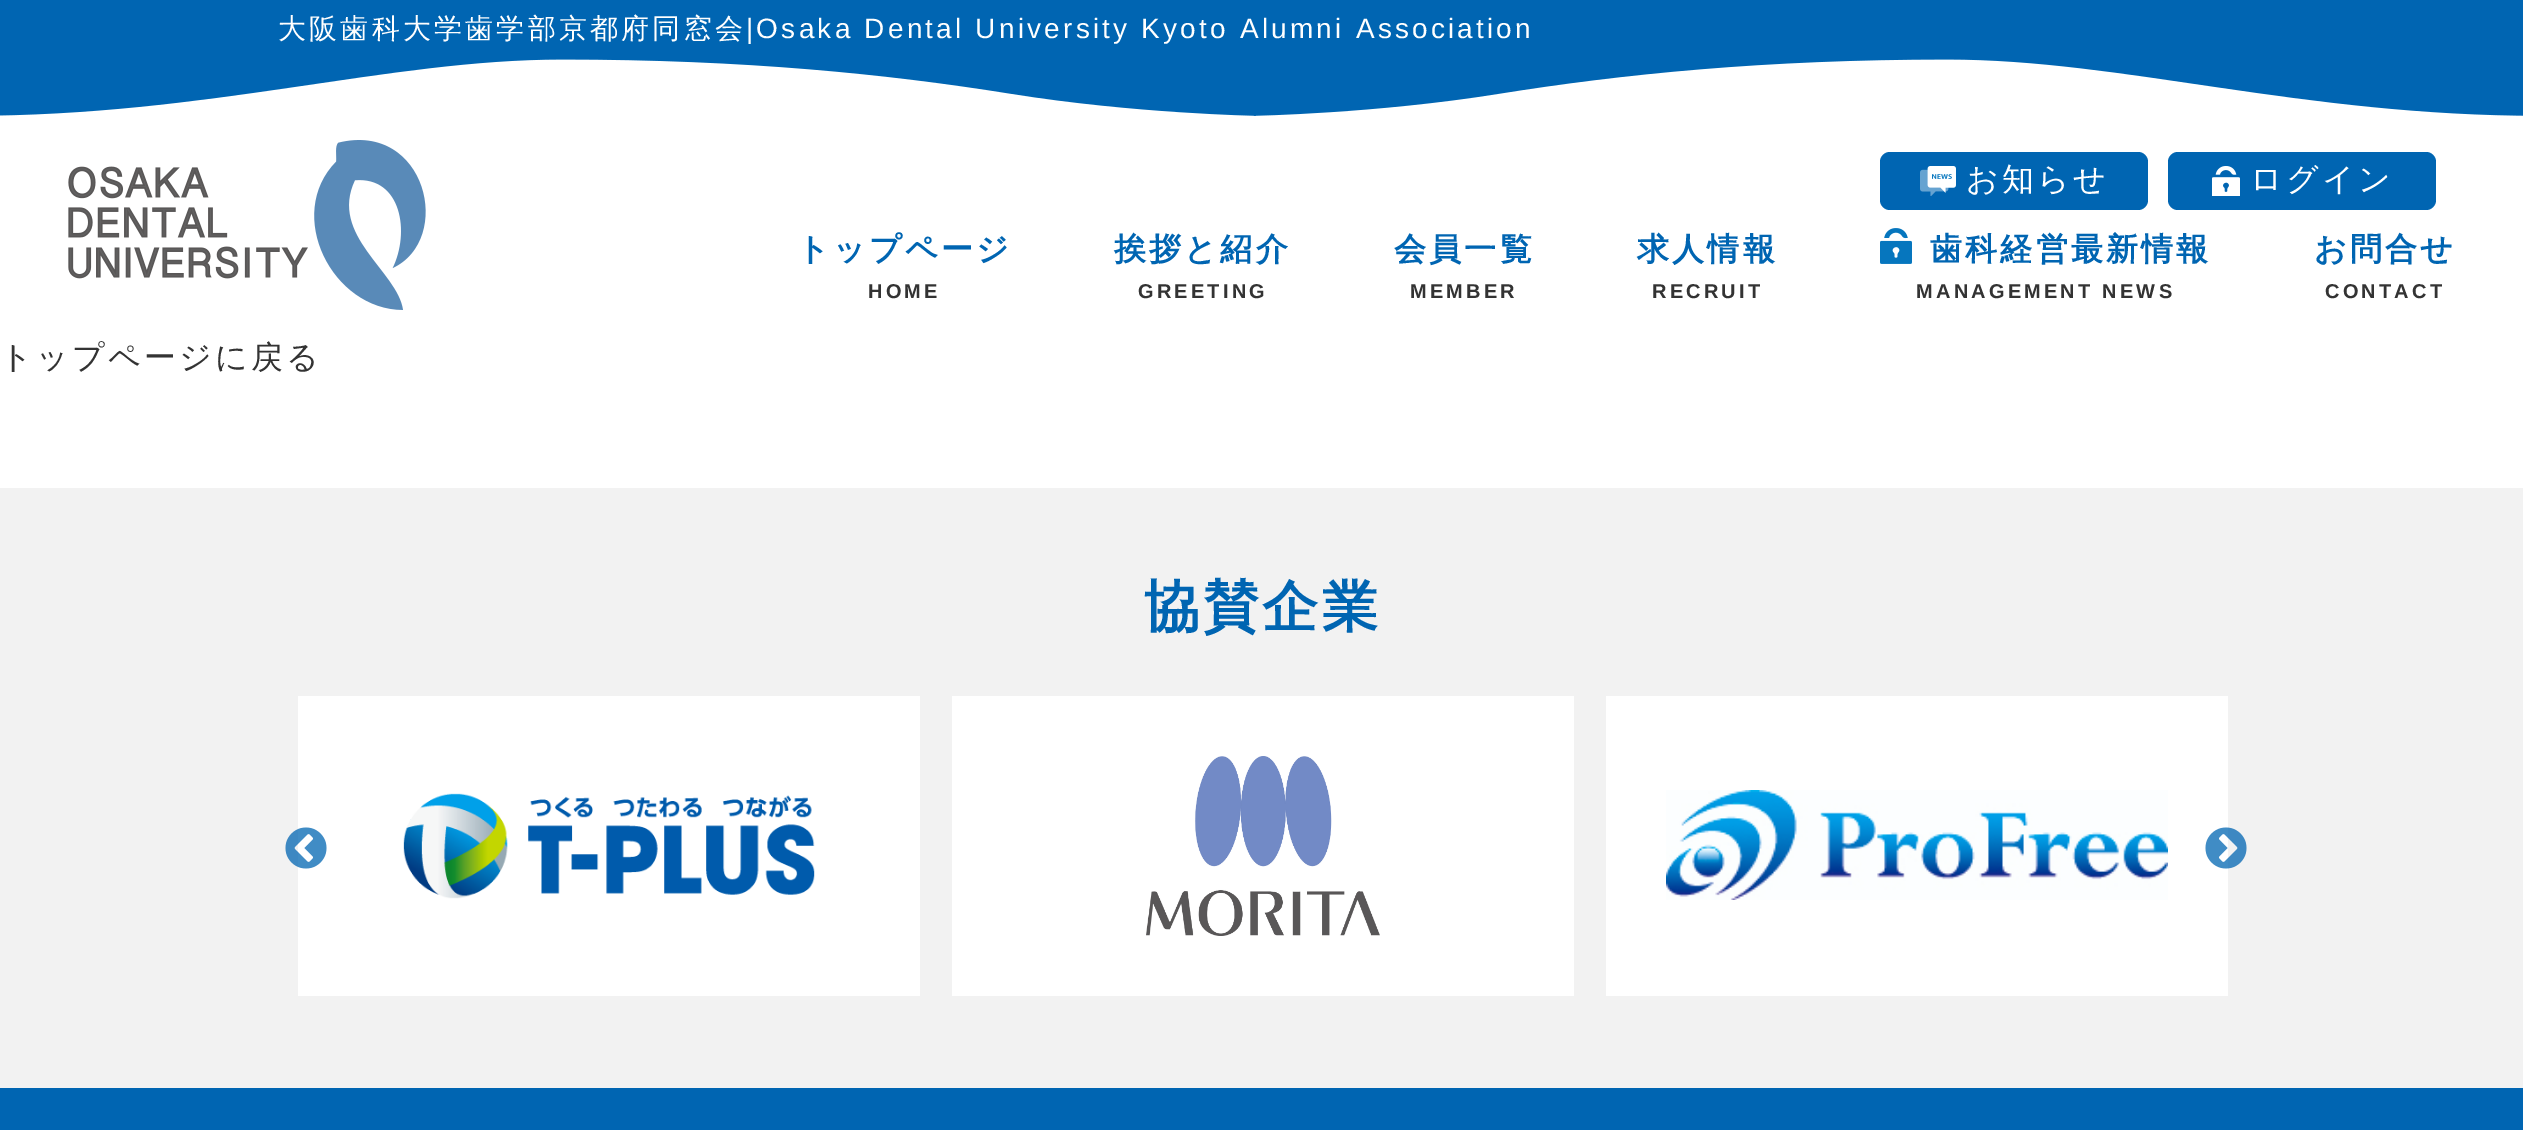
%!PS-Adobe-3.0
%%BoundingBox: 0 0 2523 1130
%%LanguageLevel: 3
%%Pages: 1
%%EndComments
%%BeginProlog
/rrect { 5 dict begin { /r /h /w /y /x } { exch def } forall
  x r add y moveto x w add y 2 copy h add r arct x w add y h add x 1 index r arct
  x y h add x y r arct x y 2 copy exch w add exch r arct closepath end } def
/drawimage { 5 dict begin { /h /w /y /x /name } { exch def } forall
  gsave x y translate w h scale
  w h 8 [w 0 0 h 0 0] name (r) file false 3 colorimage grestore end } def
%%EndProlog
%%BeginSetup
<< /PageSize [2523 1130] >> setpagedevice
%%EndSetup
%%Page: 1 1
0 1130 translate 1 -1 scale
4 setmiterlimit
1 setgray
0 0 2523 1130 rectfill
(images/1.raw) 0 0 2523 116 drawimage
(images/2.raw) 68 140 358 170 drawimage
0 0.396 0.698 setrgbcolor
1880 152 268 58 10 rrect fill
(images/3.raw) 1920 166 36 30 drawimage
2168 152 268 58 10 rrect fill
(images/4.raw) 2212 166 28 30 drawimage
(images/5.raw) 1880 228 32 36 drawimage
0.949 setgray
0 488 2523 600 rectfill
1 setgray
298 696 622 300 rectfill
(images/6.raw) 403 793 412 106 drawimage
952 696 622 300 rectfill
(images/7.raw) 1146 756 234 180 drawimage
1606 696 622 300 rectfill
(images/8.raw) 1666 790 502 110 drawimage
(images/9.raw) 285 827 42 42 drawimage
(images/10.raw) 2205 827 42 42 drawimage
0 0.396 0.698 setrgbcolor
0 1088 2523 42 rectfill
/WenQuanYiZenHei-Medium [28 0 0 -28 0 0] selectfont
1 setgray
278 38 moveto 3.2 0 (大阪歯科大学歯学部京都府同窓会) ashow
/LiberationSans-Regular [28 0 0 -28 0 0] selectfont
746 38 moveto 3.2 0 (|Osaka Dental University Kyoto Alumni Association) ashow
/WenQuanYiZenHei-Medium [32 0 0 -32 0 0] selectfont
1966 190 moveto 3.2 0 (お知らせ) ashow
2250 190 moveto 3.2 0 (ログイン) ashow
/WenQuanYiZenHei-Bold [32 0 0 -32 0 0] selectfont
0 0.396 0.698 setrgbcolor
797 260 moveto 3.2 0 (トップページ) ashow
/LiberationSans-Bold [20 0 0 -20 0 0] selectfont
0.2 setgray
868 298 moveto 3.2 0 (HOME) ashow
/WenQuanYiZenHei-Bold [32 0 0 -32 0 0] selectfont
0 0.396 0.698 setrgbcolor
1114 260 moveto 3.2 0 (挨拶と紹介) ashow
/LiberationSans-Bold [20 0 0 -20 0 0] selectfont
0.2 setgray
1138 298 moveto 3.2 0 (GREETING) ashow
/WenQuanYiZenHei-Bold [32 0 0 -32 0 0] selectfont
0 0.396 0.698 setrgbcolor
1394 260 moveto 3.2 0 (会員一覧) ashow
/LiberationSans-Bold [20 0 0 -20 0 0] selectfont
0.2 setgray
1410 298 moveto 3.2 0 (MEMBER) ashow
/WenQuanYiZenHei-Bold [32 0 0 -32 0 0] selectfont
0 0.396 0.698 setrgbcolor
1637 260 moveto 3.2 0 (求人情報) ashow
/LiberationSans-Bold [20 0 0 -20 0 0] selectfont
0.2 setgray
1652 298 moveto 3.2 0 (RECRUIT) ashow
/WenQuanYiZenHei-Bold [32 0 0 -32 0 0] selectfont
0 0.396 0.698 setrgbcolor
1930 260 moveto 3.2 0 (歯科経営最新情報) ashow
/LiberationSans-Bold [20 0 0 -20 0 0] selectfont
0.2 setgray
1916 298 moveto 3.2 0 (MANAGEMENT NEWS) ashow
/WenQuanYiZenHei-Bold [32 0 0 -32 0 0] selectfont
0 0.396 0.698 setrgbcolor
2314 260 moveto 3.2 0 (お問合せ) ashow
/LiberationSans-Bold [20 0 0 -20 0 0] selectfont
0.2 setgray
2325 298 moveto 3.2 0 (CONTACT) ashow
/WenQuanYiZenHei-Medium [32 0 0 -32 0 0] selectfont
0 368 moveto 3.2 0 (トップページに戻る) ashow
/WenQuanYiZenHei-Bold [56 0 0 -56 0 0] selectfont
0 0.396 0.698 setrgbcolor
1144 626 moveto 3.2 0 (協賛企業) ashow
showpage
%%EOF
